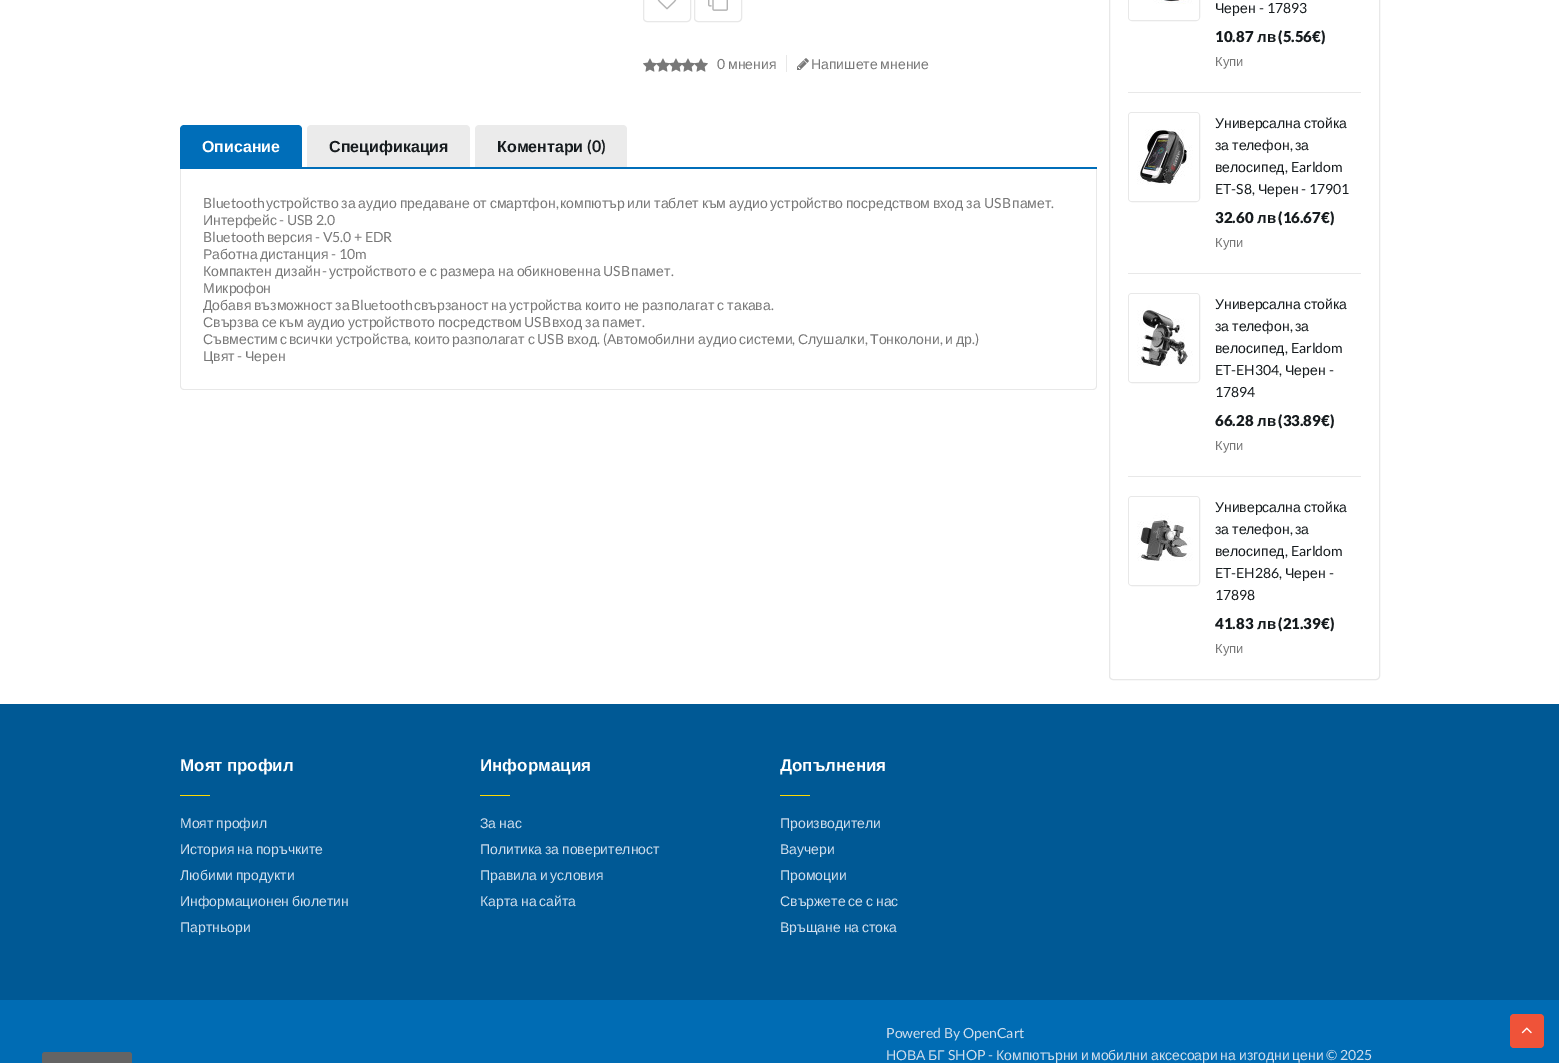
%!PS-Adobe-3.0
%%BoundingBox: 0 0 1559 1063
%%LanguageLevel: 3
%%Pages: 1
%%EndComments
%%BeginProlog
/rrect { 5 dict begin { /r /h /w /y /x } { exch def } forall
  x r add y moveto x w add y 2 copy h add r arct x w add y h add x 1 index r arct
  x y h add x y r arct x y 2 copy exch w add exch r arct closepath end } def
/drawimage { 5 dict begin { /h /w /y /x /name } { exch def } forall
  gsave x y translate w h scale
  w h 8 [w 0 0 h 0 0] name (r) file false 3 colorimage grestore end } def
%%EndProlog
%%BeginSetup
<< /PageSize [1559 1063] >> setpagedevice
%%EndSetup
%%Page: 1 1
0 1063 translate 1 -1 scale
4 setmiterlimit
1 setgray
0 0 1559 1063 rectfill
0.91 setgray
643.5 -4.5 47 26 3.5 rrect stroke
(images/1.raw) 657 0 20 10 drawimage
694.5 -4.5 47 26 3.5 rrect stroke
(images/2.raw) 708 0 20 11 drawimage
(images/3.raw) 643 58 14 14 drawimage
(images/4.raw) 656 58 14 14 drawimage
(images/4.raw) 669 58 14 14 drawimage
(images/5.raw) 682 58 13 14 drawimage
(images/4.raw) 694 58 14 14 drawimage
786 55 1 17 rectfill
(images/6.raw) 797 58 12 12 drawimage
0 0.431 0.725 setrgbcolor
180 167 917 2 rectfill
newpath 184 125 moveto 298 125 lineto 300 125 302 127 302 129 curveto 302 167 lineto 180 167 lineto 180 129 lineto 180 127 182 125 184 125 curveto closepath fill
0.922 setgray
newpath 311 125 moveto 466 125 lineto 468 125 470 127 470 129 curveto 470 167 lineto 307 167 lineto 307 129 lineto 307 127 309 125 311 125 curveto closepath fill
newpath 479 125 moveto 623 125 lineto 625 125 627 127 627 129 curveto 627 167 lineto 475 167 lineto 475 129 lineto 475 127 477 125 479 125 curveto closepath fill
0.91 setgray
newpath 180 169 moveto 1097 169 lineto 1097 386 lineto 1097 388 1095 390 1093 390 curveto 184 390 lineto 182 390 180 388 180 386 curveto closepath 181 169 moveto 1096 169 lineto 1096 386 lineto 1096 388 1095 389 1093 389 curveto 184 389 lineto 182 389 181 388 181 386 curveto closepath eofill
1109.5 -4.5 270 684 3.5 rrect stroke
1128 92 233 1 rectfill
1128.5 -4.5 71 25 3.5 rrect stroke
(images/7.raw) 1129 0 70 20 drawimage
1128 273 233 1 rectfill
1128.5 112.5 71 89 3.5 rrect stroke
(images/8.raw) 1129 113 70 88 drawimage
1128 476 233 1 rectfill
1128.5 293.5 71 89 3.5 rrect stroke
(images/9.raw) 1129 294 70 88 drawimage
1128.5 496.5 71 89 3.5 rrect stroke
(images/10.raw) 1129 497 70 88 drawimage
0 0.349 0.584 setrgbcolor
0 704 1559 296 rectfill
1 0.847 0 setrgbcolor
180 795 30 1 rectfill
480 795 30 1 rectfill
780 795 30 1 rectfill
0 0.424 0.706 setrgbcolor
0 1000 1559 63 rectfill
0.937 0.325 0.224 setrgbcolor
1510 1014 34 34 4 rrect fill
(images/11.raw) 1521 1027 11 7 drawimage
0.392 setgray
newpath 45 1052 moveto 129 1052 lineto 130.5 1052 132 1053.5 132 1055 curveto 132 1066 lineto 42 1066 lineto 42 1055 lineto 42 1053.5 43.5 1052 45 1052 curveto closepath fill
/Lato-Regular [14 0 0 -14 0 0] selectfont
0.471 setgray
717 69 moveto (0) show
/LiberationSans-Regular [14 0 0 -14 0 0] selectfont
728 69 moveto (мнения) show
811 69 moveto -1 0 32 (Напишете мнение) widthshow
/LiberationSans-Bold [16 0 0 -16 0 0] selectfont
1 setgray
202 152 moveto (Описание) show
0.086 0.106 0.118 setrgbcolor
329 152 moveto (Спецификация) show
497 152 moveto (Коментари) show
/Lato-Bold [16 0 0 -16 0 0] selectfont
587 152 moveto (\(0\)) show
/Lato-Regular [14 0 0 -14 0 0] selectfont
0.471 setgray
203 208 moveto (Bluetooth) show
/LiberationSans-Regular [14 0 0 -14 0 0] selectfont
266 208 moveto -1 0 32 (устройство за аудио предаване от смартфон) widthshow
/Lato-Regular [14 0 0 -14 0 0] selectfont
556 208 moveto (,) show
/LiberationSans-Regular [14 0 0 -14 0 0] selectfont
560 208 moveto -1 0 32 (компютър или таблет към аудио устройство посредством вход за) widthshow
/Lato-Regular [14 0 0 -14 0 0] selectfont
984 208 moveto (USB) show
/LiberationSans-Regular [14 0 0 -14 0 0] selectfont
1012 208 moveto (памет) show
/Lato-Regular [14 0 0 -14 0 0] selectfont
1051 208 moveto (.) show
/LiberationSans-Regular [14 0 0 -14 0 0] selectfont
203 225 moveto (Интерфейс) show
/Lato-Regular [14 0 0 -14 0 0] selectfont
279 225 moveto (- USB 2.0) show
203 242 moveto (Bluetooth) show
/LiberationSans-Regular [14 0 0 -14 0 0] selectfont
267 242 moveto (версия) show
/Lato-Regular [14 0 0 -14 0 0] selectfont
315 242 moveto (- V5.0 + EDR) show
/LiberationSans-Regular [14 0 0 -14 0 0] selectfont
203 259 moveto (Работна) show
260 259 moveto (дистанция) show
/Lato-Regular [14 0 0 -14 0 0] selectfont
331 259 moveto (- 10m) show
/LiberationSans-Regular [14 0 0 -14 0 0] selectfont
203 276 moveto -0.75 0 32 (Компактен дизайн) widthshow
/Lato-Regular [14 0 0 -14 0 0] selectfont
322 276 moveto (-) show
/LiberationSans-Regular [14 0 0 -14 0 0] selectfont
329 276 moveto -0.75 0 32 (устройството е с размера на обикновенна) widthshow
/Lato-Regular [14 0 0 -14 0 0] selectfont
603 276 moveto (USB) show
/LiberationSans-Regular [14 0 0 -14 0 0] selectfont
631 276 moveto (памет) show
/Lato-Regular [14 0 0 -14 0 0] selectfont
671 276 moveto (.) show
/LiberationSans-Regular [14 0 0 -14 0 0] selectfont
203 293 moveto (Микрофон) show
203 310 moveto -1 0 32 (Добавя възможност за) widthshow
/Lato-Regular [14 0 0 -14 0 0] selectfont
351 310 moveto (Bluetooth) show
/LiberationSans-Regular [14 0 0 -14 0 0] selectfont
414 310 moveto -1 0 32 (свързаност на устройства които не разполагат с такава) widthshow
/Lato-Regular [14 0 0 -14 0 0] selectfont
771 310 moveto (.) show
/LiberationSans-Regular [14 0 0 -14 0 0] selectfont
203 327 moveto -1 0 32 (Свързва се към аудио устройството посредством) widthshow
/Lato-Regular [14 0 0 -14 0 0] selectfont
524 327 moveto (USB) show
/LiberationSans-Regular [14 0 0 -14 0 0] selectfont
552 327 moveto -1 0 32 (вход за памет) widthshow
/Lato-Regular [14 0 0 -14 0 0] selectfont
642 327 moveto (.) show
/LiberationSans-Regular [14 0 0 -14 0 0] selectfont
203 344 moveto (Съвместим) show
280 344 moveto (с) show
289 344 moveto (всички) show
336 344 moveto (устройства) show
/Lato-Regular [14 0 0 -14 0 0] selectfont
408 344 moveto (,) show
/LiberationSans-Regular [14 0 0 -14 0 0] selectfont
414 344 moveto (които) show
452 344 moveto (разполагат) show
528 344 moveto (с) show
/Lato-Regular [14 0 0 -14 0 0] selectfont
537 344 moveto (USB) show
/LiberationSans-Regular [14 0 0 -14 0 0] selectfont
567 344 moveto (вход) show
/Lato-Regular [14 0 0 -14 0 0] selectfont
597 344 moveto (. \() show
/LiberationSans-Regular [14 0 0 -14 0 0] selectfont
607 344 moveto (Автомобилни) show
698 344 moveto (аудио) show
739 344 moveto (системи) show
/Lato-Regular [14 0 0 -14 0 0] selectfont
792 344 moveto (,) show
/LiberationSans-Regular [14 0 0 -14 0 0] selectfont
798 344 moveto (Слушалки) show
/Lato-Regular [14 0 0 -14 0 0] selectfont
865 344 moveto (,) show
/LiberationSans-Regular [14 0 0 -14 0 0] selectfont
870 344 moveto (Тонколони) show
/Lato-Regular [14 0 0 -14 0 0] selectfont
940 344 moveto (,) show
/LiberationSans-Regular [14 0 0 -14 0 0] selectfont
945 344 moveto (и) show
956 344 moveto (др) show
/Lato-Regular [14 0 0 -14 0 0] selectfont
972 344 moveto (.\)) show
/LiberationSans-Regular [14 0 0 -14 0 0] selectfont
203 361 moveto (Цвят) show
/Lato-Regular [14 0 0 -14 0 0] selectfont
237 361 moveto (-) show
/LiberationSans-Regular [14 0 0 -14 0 0] selectfont
245 361 moveto (Черен) show
0.086 0.106 0.118 setrgbcolor
1215 13 moveto (Черен) show
/Lato-Regular [14 0 0 -14 0 0] selectfont
1259 13 moveto (- 17893) show
/Lato-Black [15 0 0 -15 0 0] selectfont
1215 42 moveto (10.87) show
/LiberationSans-Bold [15 0 0 -15 0 0] selectfont
1257 42 moveto (лв) show
/Lato-Black [15 0 0 -15 0 0] selectfont
1278 42 moveto (\(5.56€\)) show
/LiberationSans-Regular [13 0 0 -13 0 0] selectfont
0.471 setgray
1215 66 moveto (Купи) show
/LiberationSans-Regular [14 0 0 -14 0 0] selectfont
0.086 0.106 0.118 setrgbcolor
1215 128 moveto -1 0 32 (Универсална стойка) widthshow
1215 150 moveto -1 0 32 (за телефон) widthshow
/Lato-Regular [14 0 0 -14 0 0] selectfont
1290 150 moveto (,) show
/LiberationSans-Regular [14 0 0 -14 0 0] selectfont
1295 150 moveto (за) show
1215 172 moveto (велосипед) show
/Lato-Regular [14 0 0 -14 0 0] selectfont
1285 172 moveto (, Earldom) show
1215 194 moveto (ET-S8,) show
/LiberationSans-Regular [14 0 0 -14 0 0] selectfont
1258 194 moveto (Черен) show
/Lato-Regular [14 0 0 -14 0 0] selectfont
1301 194 moveto (- 17901) show
/Lato-Black [15 0 0 -15 0 0] selectfont
1215 223 moveto (32.60) show
/LiberationSans-Bold [15 0 0 -15 0 0] selectfont
1257 223 moveto (лв) show
/Lato-Black [15 0 0 -15 0 0] selectfont
1278 223 moveto (\(16.67€\)) show
/LiberationSans-Regular [13 0 0 -13 0 0] selectfont
0.471 setgray
1215 247 moveto (Купи) show
/LiberationSans-Regular [14 0 0 -14 0 0] selectfont
0.086 0.106 0.118 setrgbcolor
1215 309 moveto -1 0 32 (Универсална стойка) widthshow
1215 331 moveto -1 0 32 (за телефон) widthshow
/Lato-Regular [14 0 0 -14 0 0] selectfont
1290 331 moveto (,) show
/LiberationSans-Regular [14 0 0 -14 0 0] selectfont
1295 331 moveto (за) show
1215 353 moveto (велосипед) show
/Lato-Regular [14 0 0 -14 0 0] selectfont
1285 353 moveto (, Earldom) show
1215 375 moveto (ET-EH304,) show
/LiberationSans-Regular [14 0 0 -14 0 0] selectfont
1285 375 moveto (Черен) show
/Lato-Regular [14 0 0 -14 0 0] selectfont
1329 375 moveto (-) show
1215 397 moveto (17894) show
/Lato-Black [15 0 0 -15 0 0] selectfont
1215 426 moveto (66.28) show
/LiberationSans-Bold [15 0 0 -15 0 0] selectfont
1257 426 moveto (лв) show
/Lato-Black [15 0 0 -15 0 0] selectfont
1278 426 moveto (\(33.89€\)) show
/LiberationSans-Regular [13 0 0 -13 0 0] selectfont
0.471 setgray
1215 450 moveto (Купи) show
/LiberationSans-Regular [14 0 0 -14 0 0] selectfont
0.086 0.106 0.118 setrgbcolor
1215 512 moveto -1 0 32 (Универсална стойка) widthshow
1215 534 moveto -1 0 32 (за телефон) widthshow
/Lato-Regular [14 0 0 -14 0 0] selectfont
1290 534 moveto (,) show
/LiberationSans-Regular [14 0 0 -14 0 0] selectfont
1295 534 moveto (за) show
1215 556 moveto (велосипед) show
/Lato-Regular [14 0 0 -14 0 0] selectfont
1285 556 moveto (, Earldom) show
1215 578 moveto (ET-EH286,) show
/LiberationSans-Regular [14 0 0 -14 0 0] selectfont
1285 578 moveto (Черен) show
/Lato-Regular [14 0 0 -14 0 0] selectfont
1329 578 moveto (-) show
1215 600 moveto (17898) show
/Lato-Black [15 0 0 -15 0 0] selectfont
1215 629 moveto (41.83) show
/LiberationSans-Bold [15 0 0 -15 0 0] selectfont
1257 629 moveto (лв) show
/Lato-Black [15 0 0 -15 0 0] selectfont
1278 629 moveto (\(21.39€\)) show
/LiberationSans-Regular [13 0 0 -13 0 0] selectfont
0.471 setgray
1215 653 moveto (Купи) show
/LiberationSans-Bold [17 0 0 -17 0 0] selectfont
1 setgray
180 771 moveto -1 0 32 (Моят профил) widthshow
/LiberationSans-Regular [14 0 0 -14 0 0] selectfont
0.816 0.871 0.929 setrgbcolor
180 828 moveto -1 0 32 (Моят профил) widthshow
180 854 moveto -1 0 32 (История на поръчките) widthshow
180 880 moveto -1 0 32 (Любими продукти) widthshow
180 906 moveto -1 0 32 (Информационен бюлетин) widthshow
180 932 moveto (Партньори) show
/LiberationSans-Bold [17 0 0 -17 0 0] selectfont
1 setgray
480 771 moveto (Информация) show
/LiberationSans-Regular [14 0 0 -14 0 0] selectfont
0.816 0.871 0.929 setrgbcolor
480 828 moveto -1 0 32 (За нас) widthshow
480 854 moveto -1 0 32 (Политика за поверителност) widthshow
480 880 moveto -1 0 32 (Правила и условия) widthshow
480 906 moveto -1 0 32 (Карта на сайта) widthshow
/LiberationSans-Bold [17 0 0 -17 0 0] selectfont
1 setgray
780 771 moveto (Допълнения) show
/LiberationSans-Regular [14 0 0 -14 0 0] selectfont
0.816 0.871 0.929 setrgbcolor
780 828 moveto (Производители) show
780 854 moveto (Ваучери) show
780 880 moveto (Промоции) show
780 906 moveto -1 0 32 (Свържете се с нас) widthshow
780 932 moveto -1 0 32 (Връщане на стока) widthshow
/Lato-Regular [14 0 0 -14 0 0] selectfont
886 1038 moveto (Powered By OpenCart) show
/LiberationSans-Regular [14 0 0 -14 0 0] selectfont
886 1060 moveto (НОВА) show
928 1060 moveto (БГ) show
/Lato-Regular [14 0 0 -14 0 0] selectfont
948 1060 moveto (SHOP -) show
/LiberationSans-Regular [14 0 0 -14 0 0] selectfont
996 1060 moveto (Компютърни) show
1081 1060 moveto (и) show
1091 1060 moveto (мобилни) show
1151 1060 moveto (аксесоари) show
1220 1060 moveto (на) show
1239 1060 moveto (изгодни) show
1292 1060 moveto (цени) show
/Lato-Regular [14 0 0 -14 0 0] selectfont
1326 1060 moveto (© 2025) show
showpage
%%EOF
